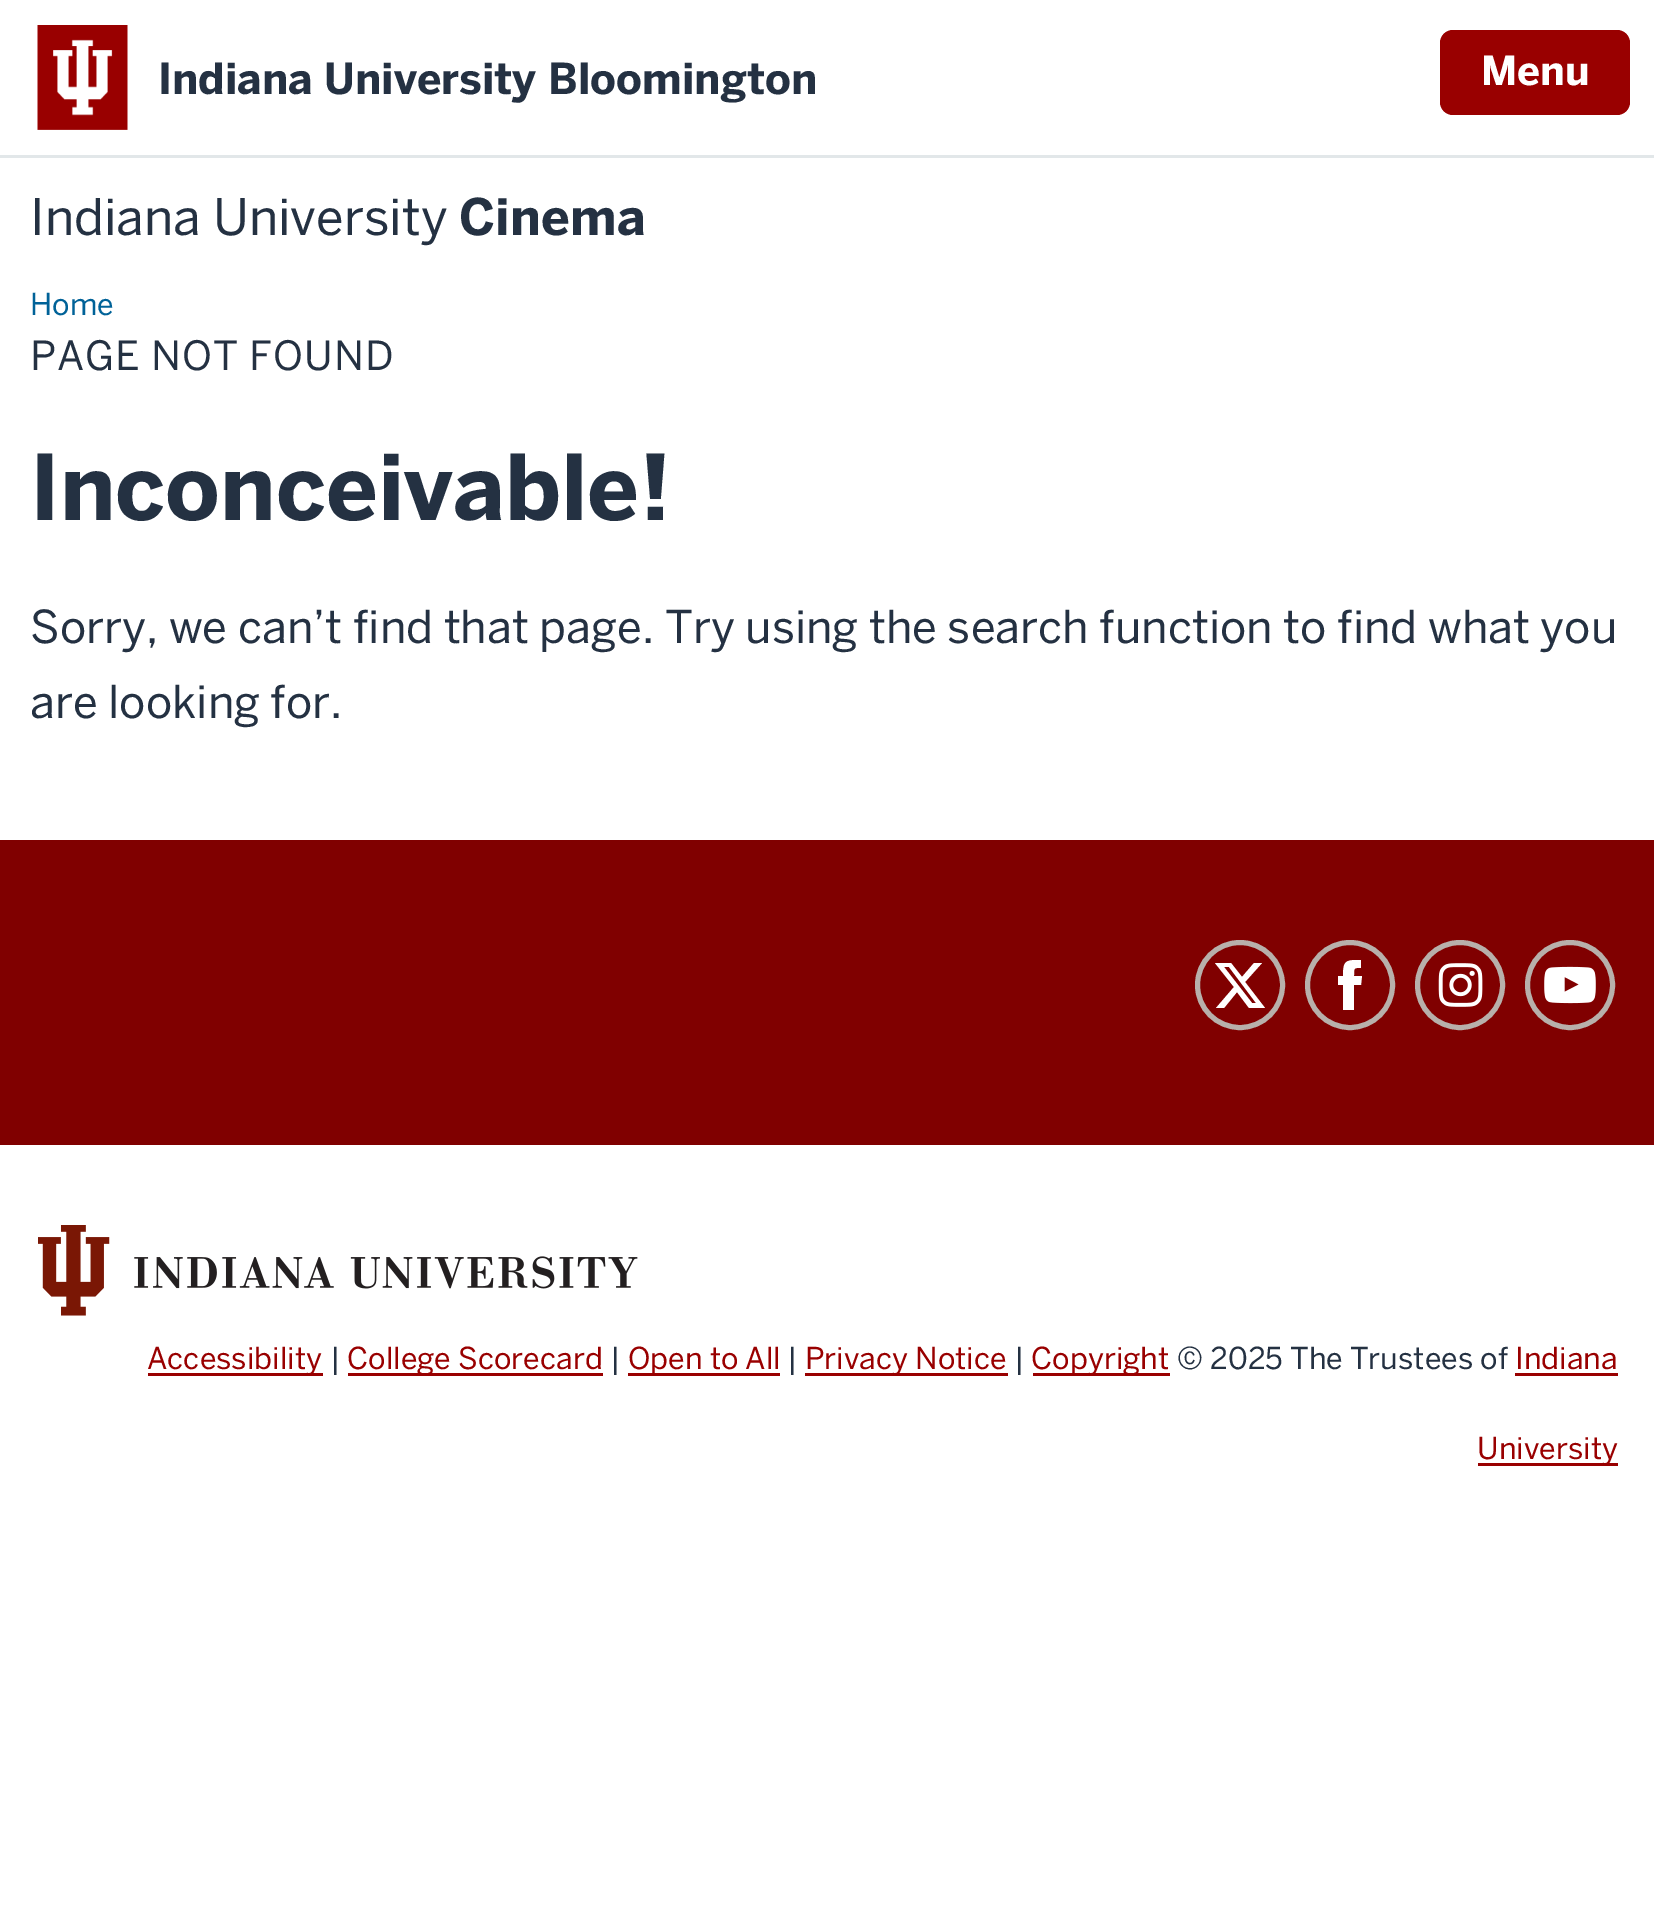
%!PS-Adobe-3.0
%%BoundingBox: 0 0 1654 1917
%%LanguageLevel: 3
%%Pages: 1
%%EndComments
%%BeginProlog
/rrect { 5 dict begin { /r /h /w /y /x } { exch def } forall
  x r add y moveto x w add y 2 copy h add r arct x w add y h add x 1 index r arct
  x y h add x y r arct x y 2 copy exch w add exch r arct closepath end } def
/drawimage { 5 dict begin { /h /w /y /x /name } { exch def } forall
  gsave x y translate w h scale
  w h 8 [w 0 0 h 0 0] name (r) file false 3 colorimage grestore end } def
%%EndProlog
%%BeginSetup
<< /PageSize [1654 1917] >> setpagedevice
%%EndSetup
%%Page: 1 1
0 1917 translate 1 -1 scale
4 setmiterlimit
1 setgray
0 0 1654 1917 rectfill
0.886 0.906 0.914 setrgbcolor
0 155 1654 3 rectfill
(images/1.raw) 37 25 91 105 drawimage
0.6 0 0 setrgbcolor
1440 30 190 85 13 rrect fill
0.502 0 0 setrgbcolor
0 840 1654 305 rectfill
0.722 0.69 0.671 setrgbcolor
5 setlinewidth
newpath 1240 985 42.5 0 360 arc closepath stroke
1 setgray
newpath 1254 963 moveto 1262 963 lineto 1245 982 lineto 1265 1008 lineto 1249 1008 lineto 1237 992 lineto 1224 1008 lineto 1216 1008 lineto 1234 987 lineto 1215 963 lineto 1231 963 lineto 1242 977 lineto closepath 1252 1003 moveto 1256 1003 lineto 1229 967 lineto 1224 967 lineto closepath fill
0.722 0.69 0.671 setrgbcolor
newpath 1350 985 42.5 0 360 arc closepath stroke
1 setgray
newpath 1361 985 moveto 1354 985 lineto 1354 1010 lineto 1343 1010 lineto 1343 985 lineto 1338 985 lineto 1338 976 lineto 1343 976 lineto 1343 960 1346 960 1361 960 curveto 1361 968 lineto 1354 968 1354 967 1354 976 curveto 1362 976 lineto closepath fill
0.722 0.69 0.671 setrgbcolor
newpath 1460 985 42.5 0 360 arc closepath stroke
(images/2.raw) 1438 963 45 44 drawimage
newpath 1570 985 42.5 0 360 arc closepath stroke
(images/3.raw) 1544 966 52 38 drawimage
(images/4.raw) 38 1225 600 91 drawimage
0.6 0 0 setrgbcolor
148 1373 175 3 rectfill
348 1373 255 3 rectfill
628 1373 152 3 rectfill
805 1373 203 3 rectfill
1033 1373 137 3 rectfill
1515 1373 103 3 rectfill
1478 1463 140 3 rectfill
/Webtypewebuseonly-Bold [42.5 0 0 -42.5 0 0] selectfont
0.141 0.192 0.259 setrgbcolor
158 94 moveto (Indiana University Bloomington) show
/Webtypewebuseonly-Bold [40 0 0 -40 0 0] selectfont
1 setgray
1481 85 moveto (Menu) show
/Webtypewebuseonly-Regular [50 0 0 -50 0 0] selectfont
0.141 0.192 0.259 setrgbcolor
30 235 moveto (Indiana University) show
/Webtypewebuseonly-Bold [50 0 0 -50 0 0] selectfont
459 235 moveto (Cinema) show
/Webtypewebuseonly-Regular [30 0 0 -30 0 0] selectfont
0 0.384 0.596 setrgbcolor
30 315 moveto (Home) show
/Webtypewebuseonly-Regular [40 0 0 -40 0 0] selectfont
0.141 0.192 0.259 setrgbcolor
30 370 moveto 1 0 (PAGE NOT FOUND) ashow
/Webtypewebuseonly-Bold [90 0 0 -90 0 0] selectfont
30 520 moveto (Inconceivable!) show
/Webtypewebuseonly-Regular [45 0 0 -45 0 0] selectfont
30 643 moveto (Sorry, we can’t find that page. Try using the search function to find what you) show
30 718 moveto (are looking for.) show
/Webtypewebuseonly-Regular [30 0 0 -30 0 0] selectfont
0.6 0 0 setrgbcolor
147 1369 moveto (Accessibility) show
0.141 0.192 0.259 setrgbcolor
330 1369 moveto (|) show
0.6 0 0 setrgbcolor
347 1369 moveto (College Scorecard) show
0.141 0.192 0.259 setrgbcolor
610 1369 moveto (|) show
0.6 0 0 setrgbcolor
628 1369 moveto (Open to All) show
0.141 0.192 0.259 setrgbcolor
787 1369 moveto (|) show
0.6 0 0 setrgbcolor
805 1369 moveto (Privacy Notice) show
0.141 0.192 0.259 setrgbcolor
1014 1369 moveto (|) show
0.6 0 0 setrgbcolor
1031 1369 moveto (Copyright) show
0.141 0.192 0.259 setrgbcolor
1177 1369 moveto (© 2025 The Trustees of) show
0.6 0 0 setrgbcolor
1515 1369 moveto (Indiana) show
1477 1459 moveto (University) show
showpage
%%EOF
